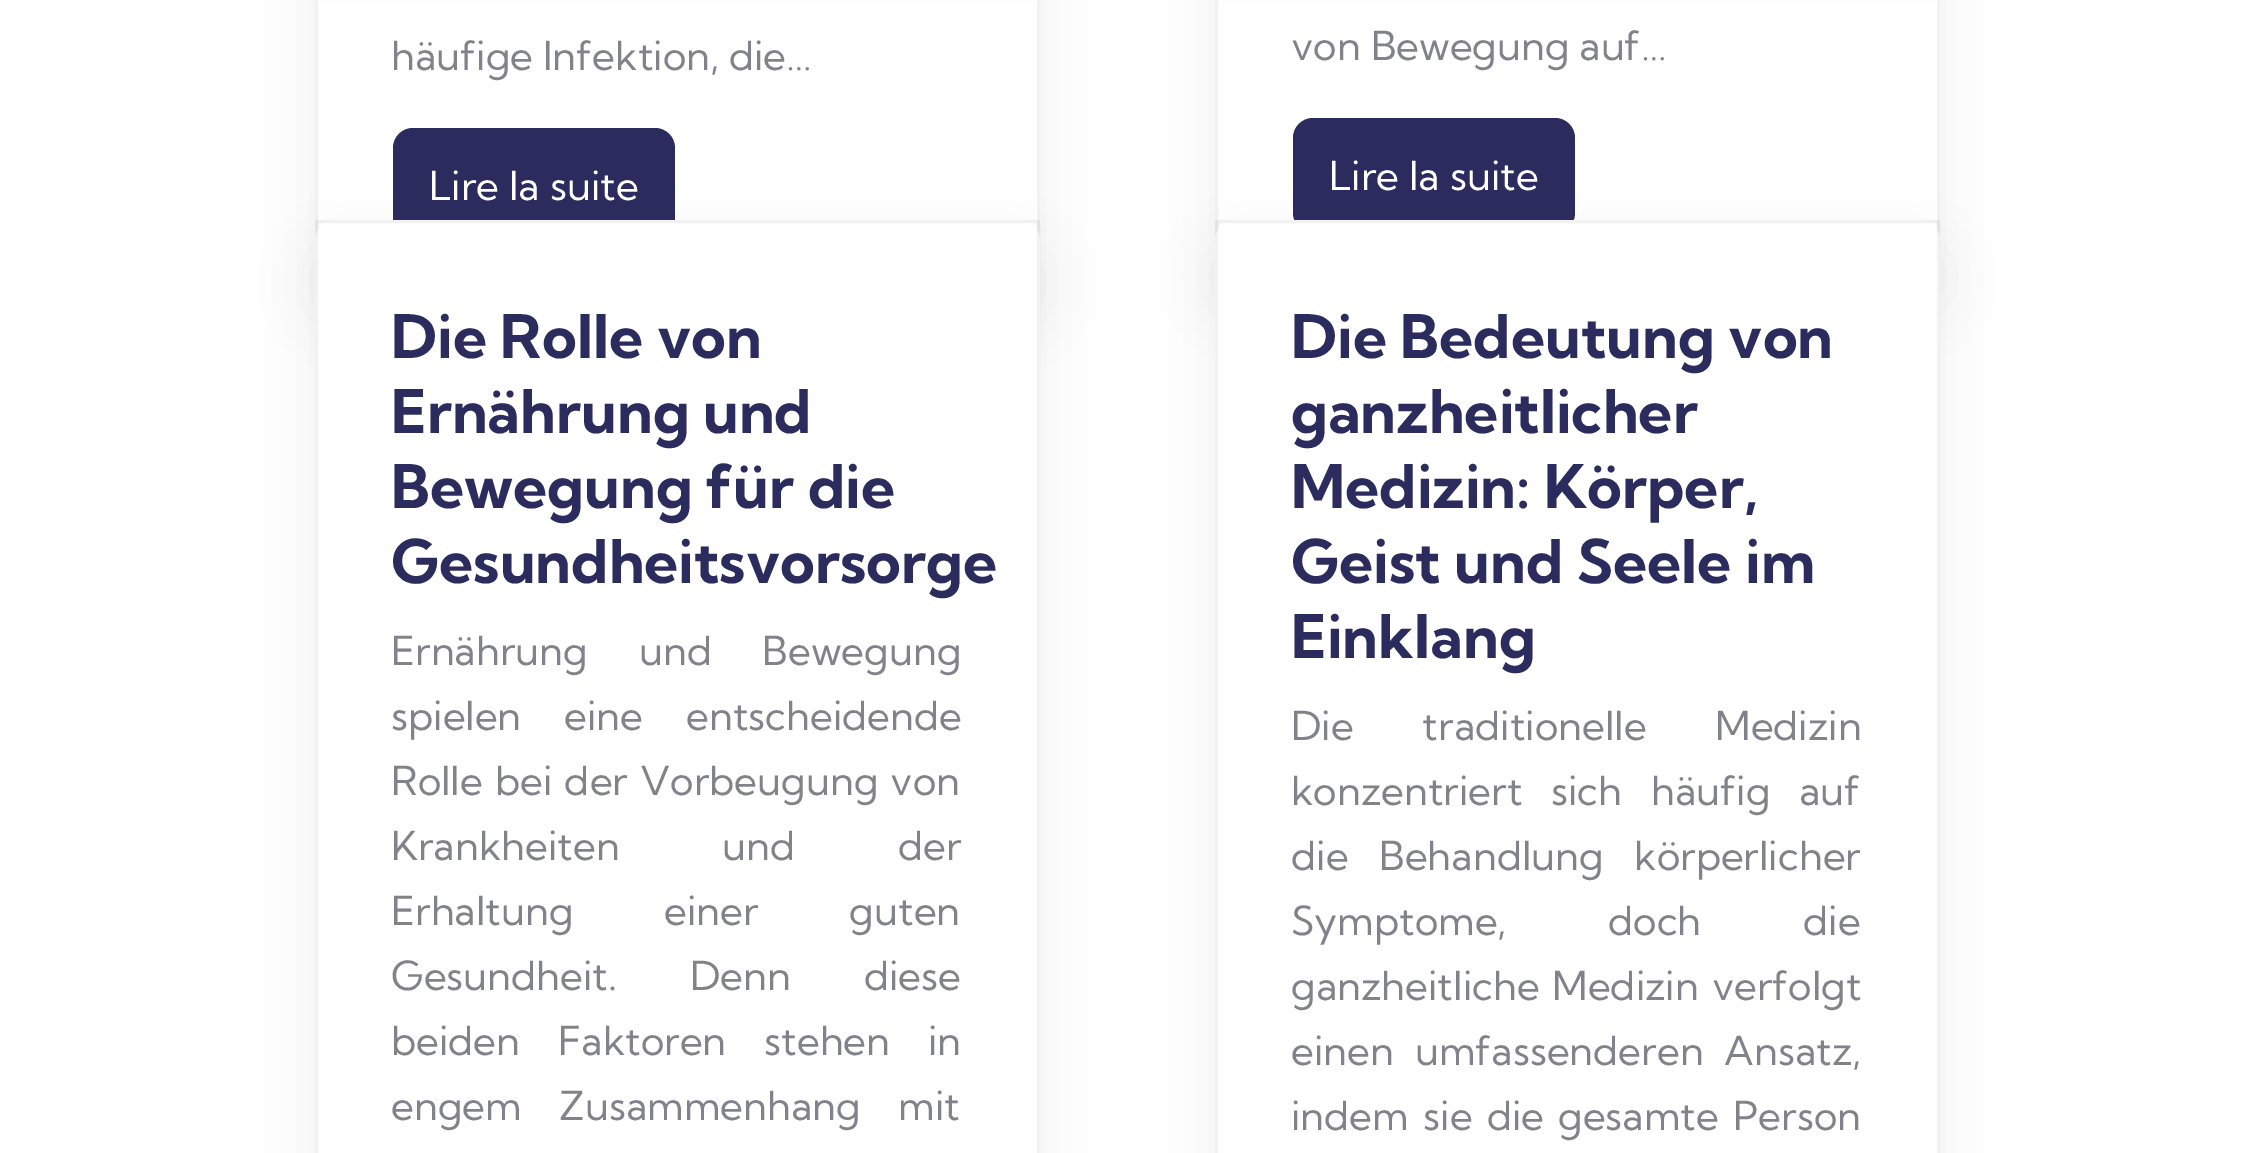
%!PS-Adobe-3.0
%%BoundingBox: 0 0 2252 1153
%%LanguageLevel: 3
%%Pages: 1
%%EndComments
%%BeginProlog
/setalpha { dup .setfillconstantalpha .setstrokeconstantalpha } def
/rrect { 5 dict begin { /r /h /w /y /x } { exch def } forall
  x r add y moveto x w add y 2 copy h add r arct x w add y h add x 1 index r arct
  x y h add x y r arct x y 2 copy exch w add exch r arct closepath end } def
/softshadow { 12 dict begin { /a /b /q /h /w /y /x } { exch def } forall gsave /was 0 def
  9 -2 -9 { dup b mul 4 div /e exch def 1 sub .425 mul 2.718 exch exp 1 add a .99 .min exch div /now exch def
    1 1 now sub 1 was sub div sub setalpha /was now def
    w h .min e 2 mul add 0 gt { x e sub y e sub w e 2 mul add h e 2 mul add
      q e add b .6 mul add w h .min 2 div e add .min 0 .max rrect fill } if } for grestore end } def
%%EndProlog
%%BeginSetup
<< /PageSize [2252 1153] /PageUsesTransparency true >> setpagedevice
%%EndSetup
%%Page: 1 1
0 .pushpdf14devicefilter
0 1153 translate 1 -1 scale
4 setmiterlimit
1 setgray
0 0 2252 1153 rectfill
0.298 setgray
315 -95 725 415 20 25 0.08 softshadow
1 setgray
318 0 719 230 rectfill
0.949 setgray
3 setlinewidth
316.5 -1.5 722 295 rectstroke
0.169 0.169 0.369 setrgbcolor
393 128 282 115 20 rrect fill
0.298 setgray
1215 -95 725 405 20 25 0.08 softshadow
1 setgray
1218 0 719 230 rectfill
0.949 setgray
1216.5 -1.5 722 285 rectstroke
0.169 0.169 0.369 setrgbcolor
1293 118 282 115 20 rrect fill
0.298 setgray
315 245 725 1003 20 25 0.08 softshadow
1 setgray
315 220 725 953 20 rrect fill
0.05 setalpha
0 setgray
316.5 221.5 722 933 rectstroke
1 setalpha
0.298 setgray
1215 245 725 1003 20 25 0.08 softshadow
1 setgray
1215 220 725 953 20 rrect fill
0.05 setalpha
0 setgray
1216.5 221.5 722 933 rectstroke
/KumbhSans-Regular [40 0 0 -40 0 0] selectfont
1 setalpha
0.51 0.51 0.541 setrgbcolor
391 70 moveto (häufige Infektion, die…) show
1 setgray
429 200 moveto (Lire la suite) show
0.51 0.51 0.541 setrgbcolor
1291 60 moveto (von Bewegung auf…) show
1 setgray
1329 190 moveto (Lire la suite) show
/KumbhSans-Bold [60 0 0 -60 0 0] selectfont
0.169 0.169 0.369 setrgbcolor
391 358 moveto (Die Rolle von) show
391 433 moveto (Ernährung und) show
391 508 moveto (Bewegung für die) show
391 583 moveto (Gesundheitsvorsorge) show
/KumbhSans-Regular [40 0 0 -40 0 0] selectfont
0.51 0.51 0.541 setrgbcolor
391 665 moveto 41 0 32 (Ernährung und Bewegung) widthshow
391 730 moveto 33 0 32 (spielen eine entscheidende) widthshow
391 795 moveto 2.5 0 32 (Rolle bei der Vorbeugung von) widthshow
391 860 moveto 93 0 32 (Krankheiten und der) widthshow
391 925 moveto 81 0 32 (Erhaltung einer guten) widthshow
391 990 moveto 63 0 32 (Gesundheit. Denn diese) widthshow
391 1055 moveto 28 0 32 (beiden Faktoren stehen in) widthshow
391 1120 moveto 28 0 32 (engem Zusammenhang mit) widthshow
/KumbhSans-Bold [60 0 0 -60 0 0] selectfont
0.169 0.169 0.369 setrgbcolor
1291 358 moveto (Die Bedeutung von) show
1291 433 moveto (ganzheitlicher) show
1291 508 moveto (Medizin: Körper,) show
1291 583 moveto (Geist und Seele im) show
1291 658 moveto (Einklang) show
/KumbhSans-Regular [40 0 0 -40 0 0] selectfont
0.51 0.51 0.541 setrgbcolor
1291 740 moveto 59 0 32 (Die traditionelle Medizin) widthshow
1291 805 moveto 19 0 32 (konzentriert sich häufig auf) widthshow
1291 870 moveto 21 0 32 (die Behandlung körperlicher) widthshow
1291 935 moveto 92 0 32 (Symptome, doch die) widthshow
1291 1000 moveto 3 0 32 (ganzheitliche Medizin verfolgt) widthshow
1291 1065 moveto 11 0 32 (einen umfassenderen Ansatz,) widthshow
1291 1130 moveto 4.5 0 32 (indem sie die gesamte Person) widthshow
.poppdf14devicefilter showpage
%%EOF
